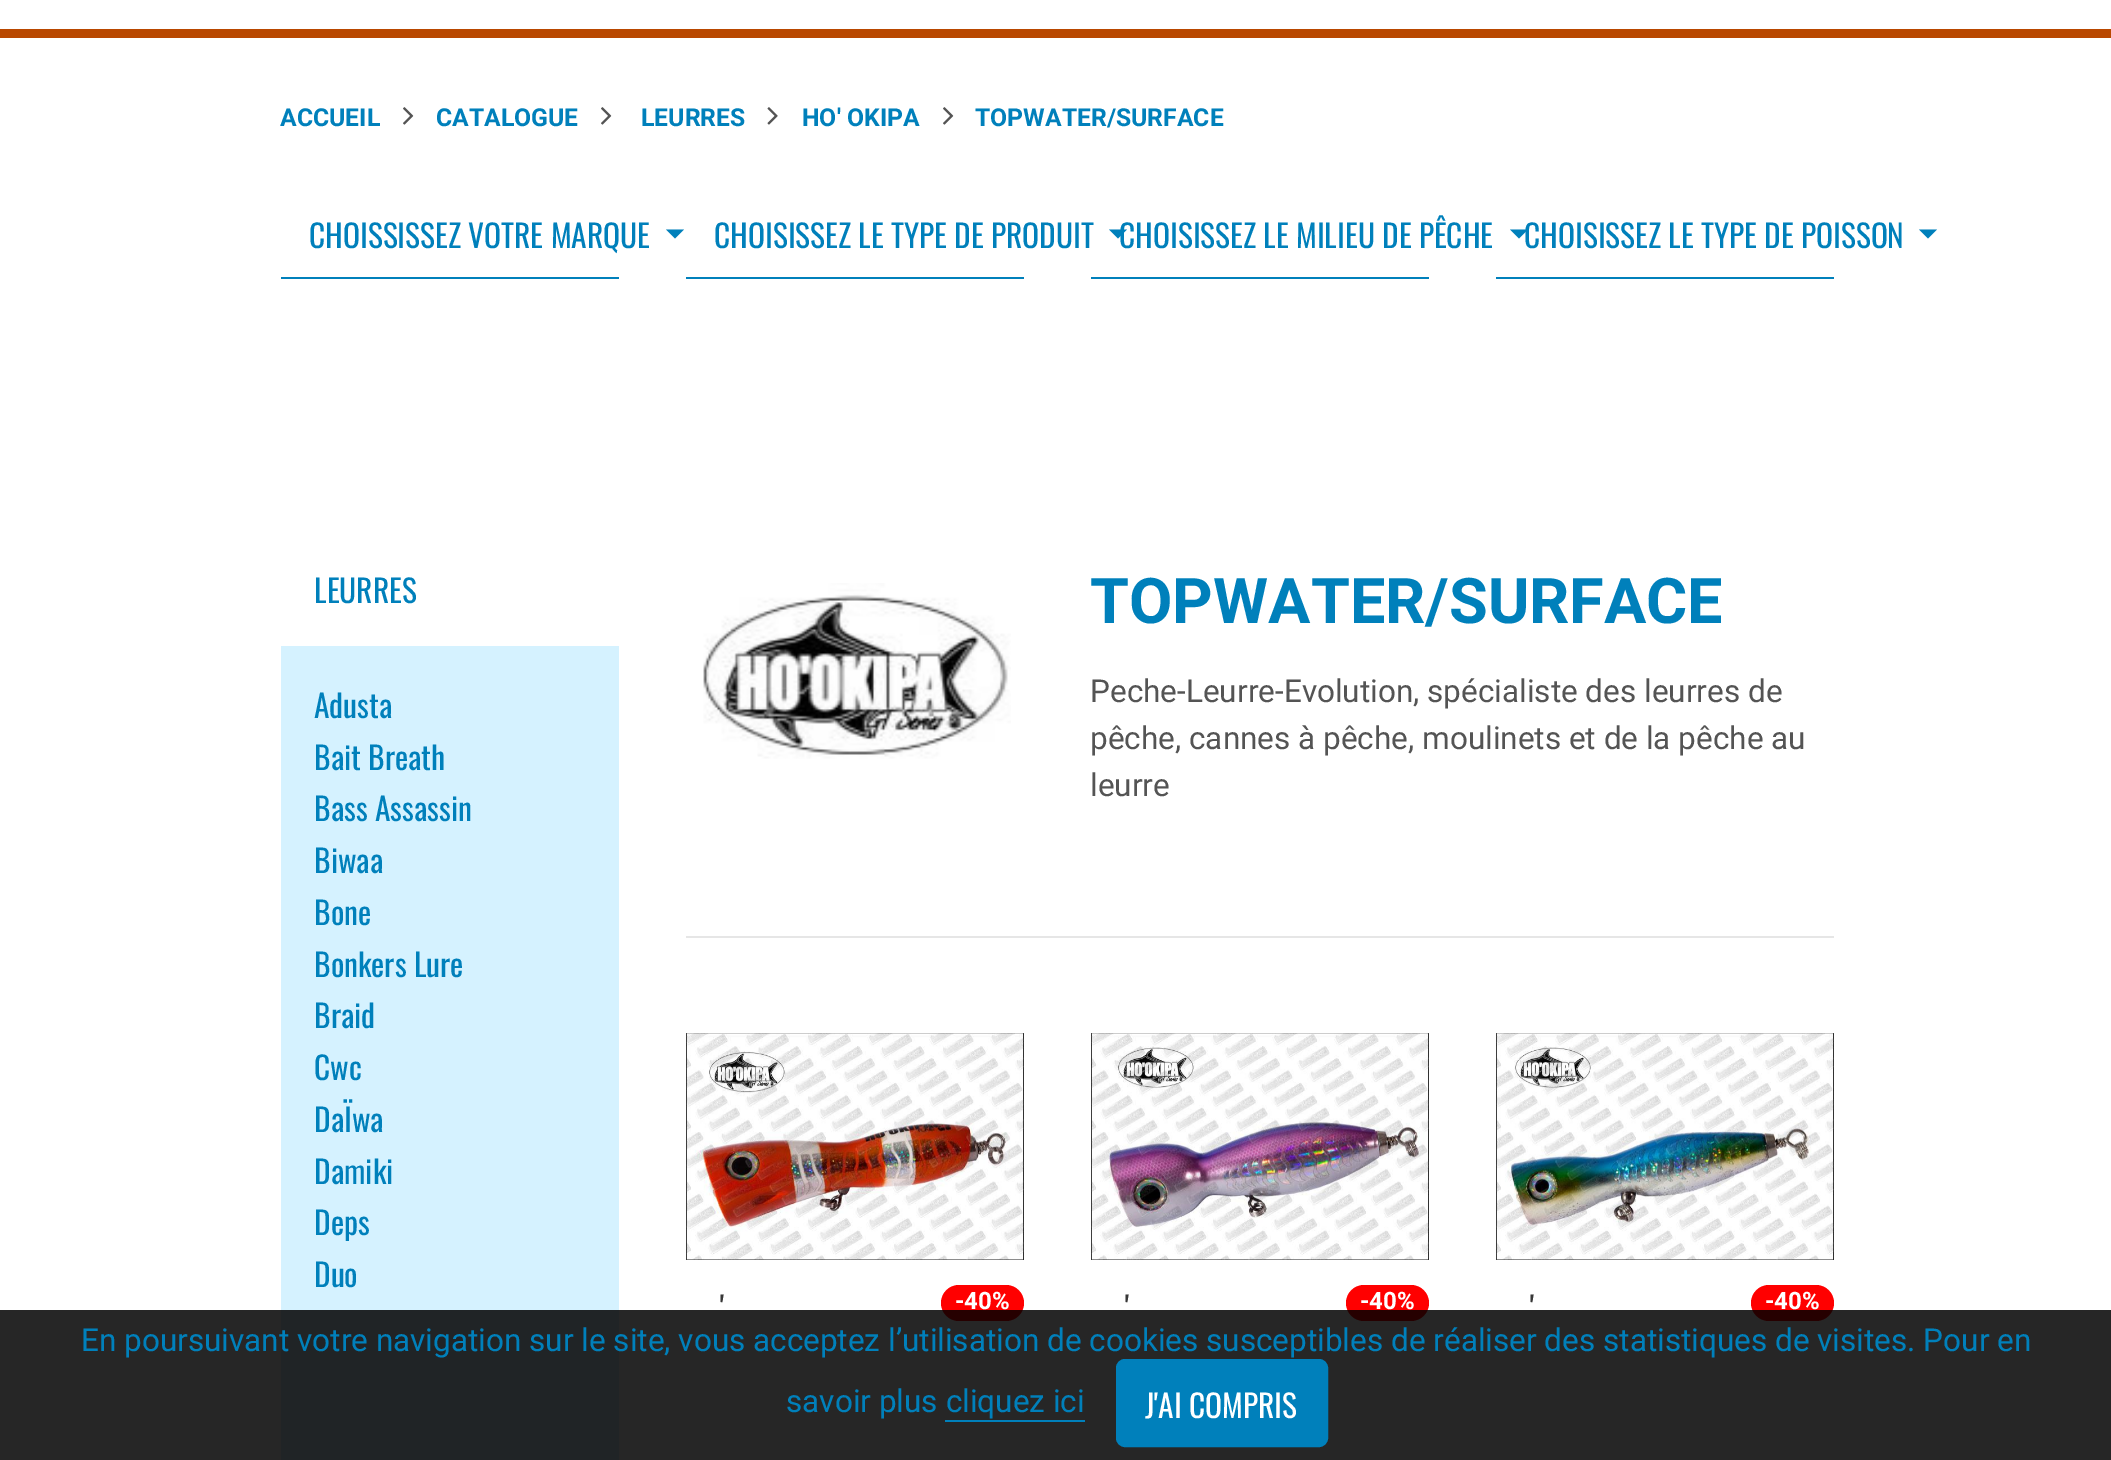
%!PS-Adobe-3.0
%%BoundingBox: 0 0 2111 1460
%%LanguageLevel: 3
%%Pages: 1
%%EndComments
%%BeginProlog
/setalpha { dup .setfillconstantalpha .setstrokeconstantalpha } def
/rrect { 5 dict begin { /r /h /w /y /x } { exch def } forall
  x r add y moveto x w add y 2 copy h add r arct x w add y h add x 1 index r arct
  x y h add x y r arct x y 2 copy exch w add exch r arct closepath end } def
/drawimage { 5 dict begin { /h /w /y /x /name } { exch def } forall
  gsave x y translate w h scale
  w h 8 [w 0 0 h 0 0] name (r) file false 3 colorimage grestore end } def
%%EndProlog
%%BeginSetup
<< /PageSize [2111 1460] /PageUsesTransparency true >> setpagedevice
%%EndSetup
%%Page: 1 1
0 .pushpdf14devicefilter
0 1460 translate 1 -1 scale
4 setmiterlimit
1 setgray
0 0 2111 1460 rectfill
0.725 0.282 0 setrgbcolor
0 29 2111 9 rectfill
(images/1.raw) 403 107 11 18 drawimage
(images/1.raw) 601 107 11 18 drawimage
(images/2.raw) 767 107 11 18 drawimage
(images/1.raw) 943 107 11 18 drawimage
0 0.502 0.733 setrgbcolor
281 277 338 2 rectfill
newpath 666 229.5 moveto 684 229.5 lineto 675 238.5 lineto closepath fill
686 277 338 2 rectfill
newpath 1109 229.5 moveto 1127 229.5 lineto 1118 238.5 lineto closepath fill
1091 277 338 2 rectfill
newpath 1510 229.5 moveto 1528 229.5 lineto 1519 238.5 lineto closepath fill
1496 277 338 2 rectfill
newpath 1919 229.5 moveto 1937 229.5 lineto 1928 238.5 lineto closepath fill
0.835 0.949 1 setrgbcolor
281 646 338 814 rectfill
(images/3.raw) 703 583 308 176 drawimage
0.902 setgray
686 936 1148 2 rectfill
(images/4.raw) 686 1033 338 227 drawimage
1 0 0 setrgbcolor
941 1285 83 36 18 rrect fill
(images/5.raw) 1091 1033 338 227 drawimage
1346 1285 83 36 18 rrect fill
(images/6.raw) 1496 1033 338 227 drawimage
1751 1285 83 36 18 rrect fill
0.85 setalpha
0 setgray
0 1310 2111 150 rectfill
1 setalpha
0 0.502 0.733 setrgbcolor
1117 1360 210 86 8 rrect gsave fill grestore
2 setlinewidth
stroke
945 1420 140 2 rectfill
/Roboto-Bold [24.75 0 0 -24.75 0 0] selectfont
280 126 moveto (ACCUEIL) show
436 126 moveto (CATALOGUE) show
641 126 moveto (LEURRES) show
802 126 moveto (HO' OKIPA) show
975 126 moveto (TOPWATER/SURFACE) show
/Oswald-Regular [31.5 0 0 -31.5 0 0] selectfont
309 248 moveto (CHOISSISSEZ VOTRE MARQUE) show
714 248 moveto (CHOISISSEZ LE TYPE DE PRODUIT) show
1119 248 moveto (CHOISISSEZ LE MILIEU DE PÊCHE) show
1524 248 moveto (CHOISISSEZ LE TYPE DE POISSON) show
314 603 moveto (LEURRES) show
314 718 moveto (Adusta) show
314 770 moveto (Bait Breath) show
314 821 moveto (Bass Assassin) show
314 873 moveto (Biwaa) show
314 925 moveto (Bone) show
314 977 moveto (Bonkers Lure) show
314 1028 moveto (Braid) show
314 1080 moveto (Cwc) show
314 1132 moveto (DaÏwa) show
314 1184 moveto (Damiki) show
314 1235 moveto (Deps) show
314 1287 moveto (Duo) show
/Roboto-Bold [63 0 0 -63 0 0] selectfont
1090 623 moveto (TOPWATER/SURFACE) show
/Roboto-Regular [31.5 0 0 -31.5 0 0] selectfont
0.329 setgray
1090 702 moveto (Peche-Leurre-Evolution, spécialiste des leurres de) show
1090 749 moveto (pêche, cannes à pêche, moulinets et de la pêche au) show
1090 796 moveto (leurre) show
/Oswald-Regular [31.5 0 0 -31.5 0 0] selectfont
0.22 setgray
720 1320 moveto (') show
/Roboto-Bold [24 0 0 -24 0 0] selectfont
1 setgray
955 1309 moveto (-40%) show
/Oswald-Regular [31.5 0 0 -31.5 0 0] selectfont
0.22 setgray
1125 1320 moveto (') show
/Roboto-Bold [24 0 0 -24 0 0] selectfont
1 setgray
1360 1309 moveto (-40%) show
/Oswald-Regular [31.5 0 0 -31.5 0 0] selectfont
0.22 setgray
1530 1320 moveto (') show
/Roboto-Bold [24 0 0 -24 0 0] selectfont
1 setgray
1765 1309 moveto (-40%) show
/Roboto-Regular [31.5 0 0 -31.5 0 0] selectfont
0 0.502 0.733 setrgbcolor
81 1351 moveto (En poursuivant votre navigation sur le site, vous acceptez l’utilisation de cookies susceptibles de réaliser des statistiques de visites. Pour en) show
786 1412 moveto (savoir plus cliquez ici) show
/Oswald-Regular [31.5 0 0 -31.5 0 0] selectfont
1 setgray
1145 1418 moveto (J'AI COMPRIS) show
.poppdf14devicefilter showpage
%%EOF
